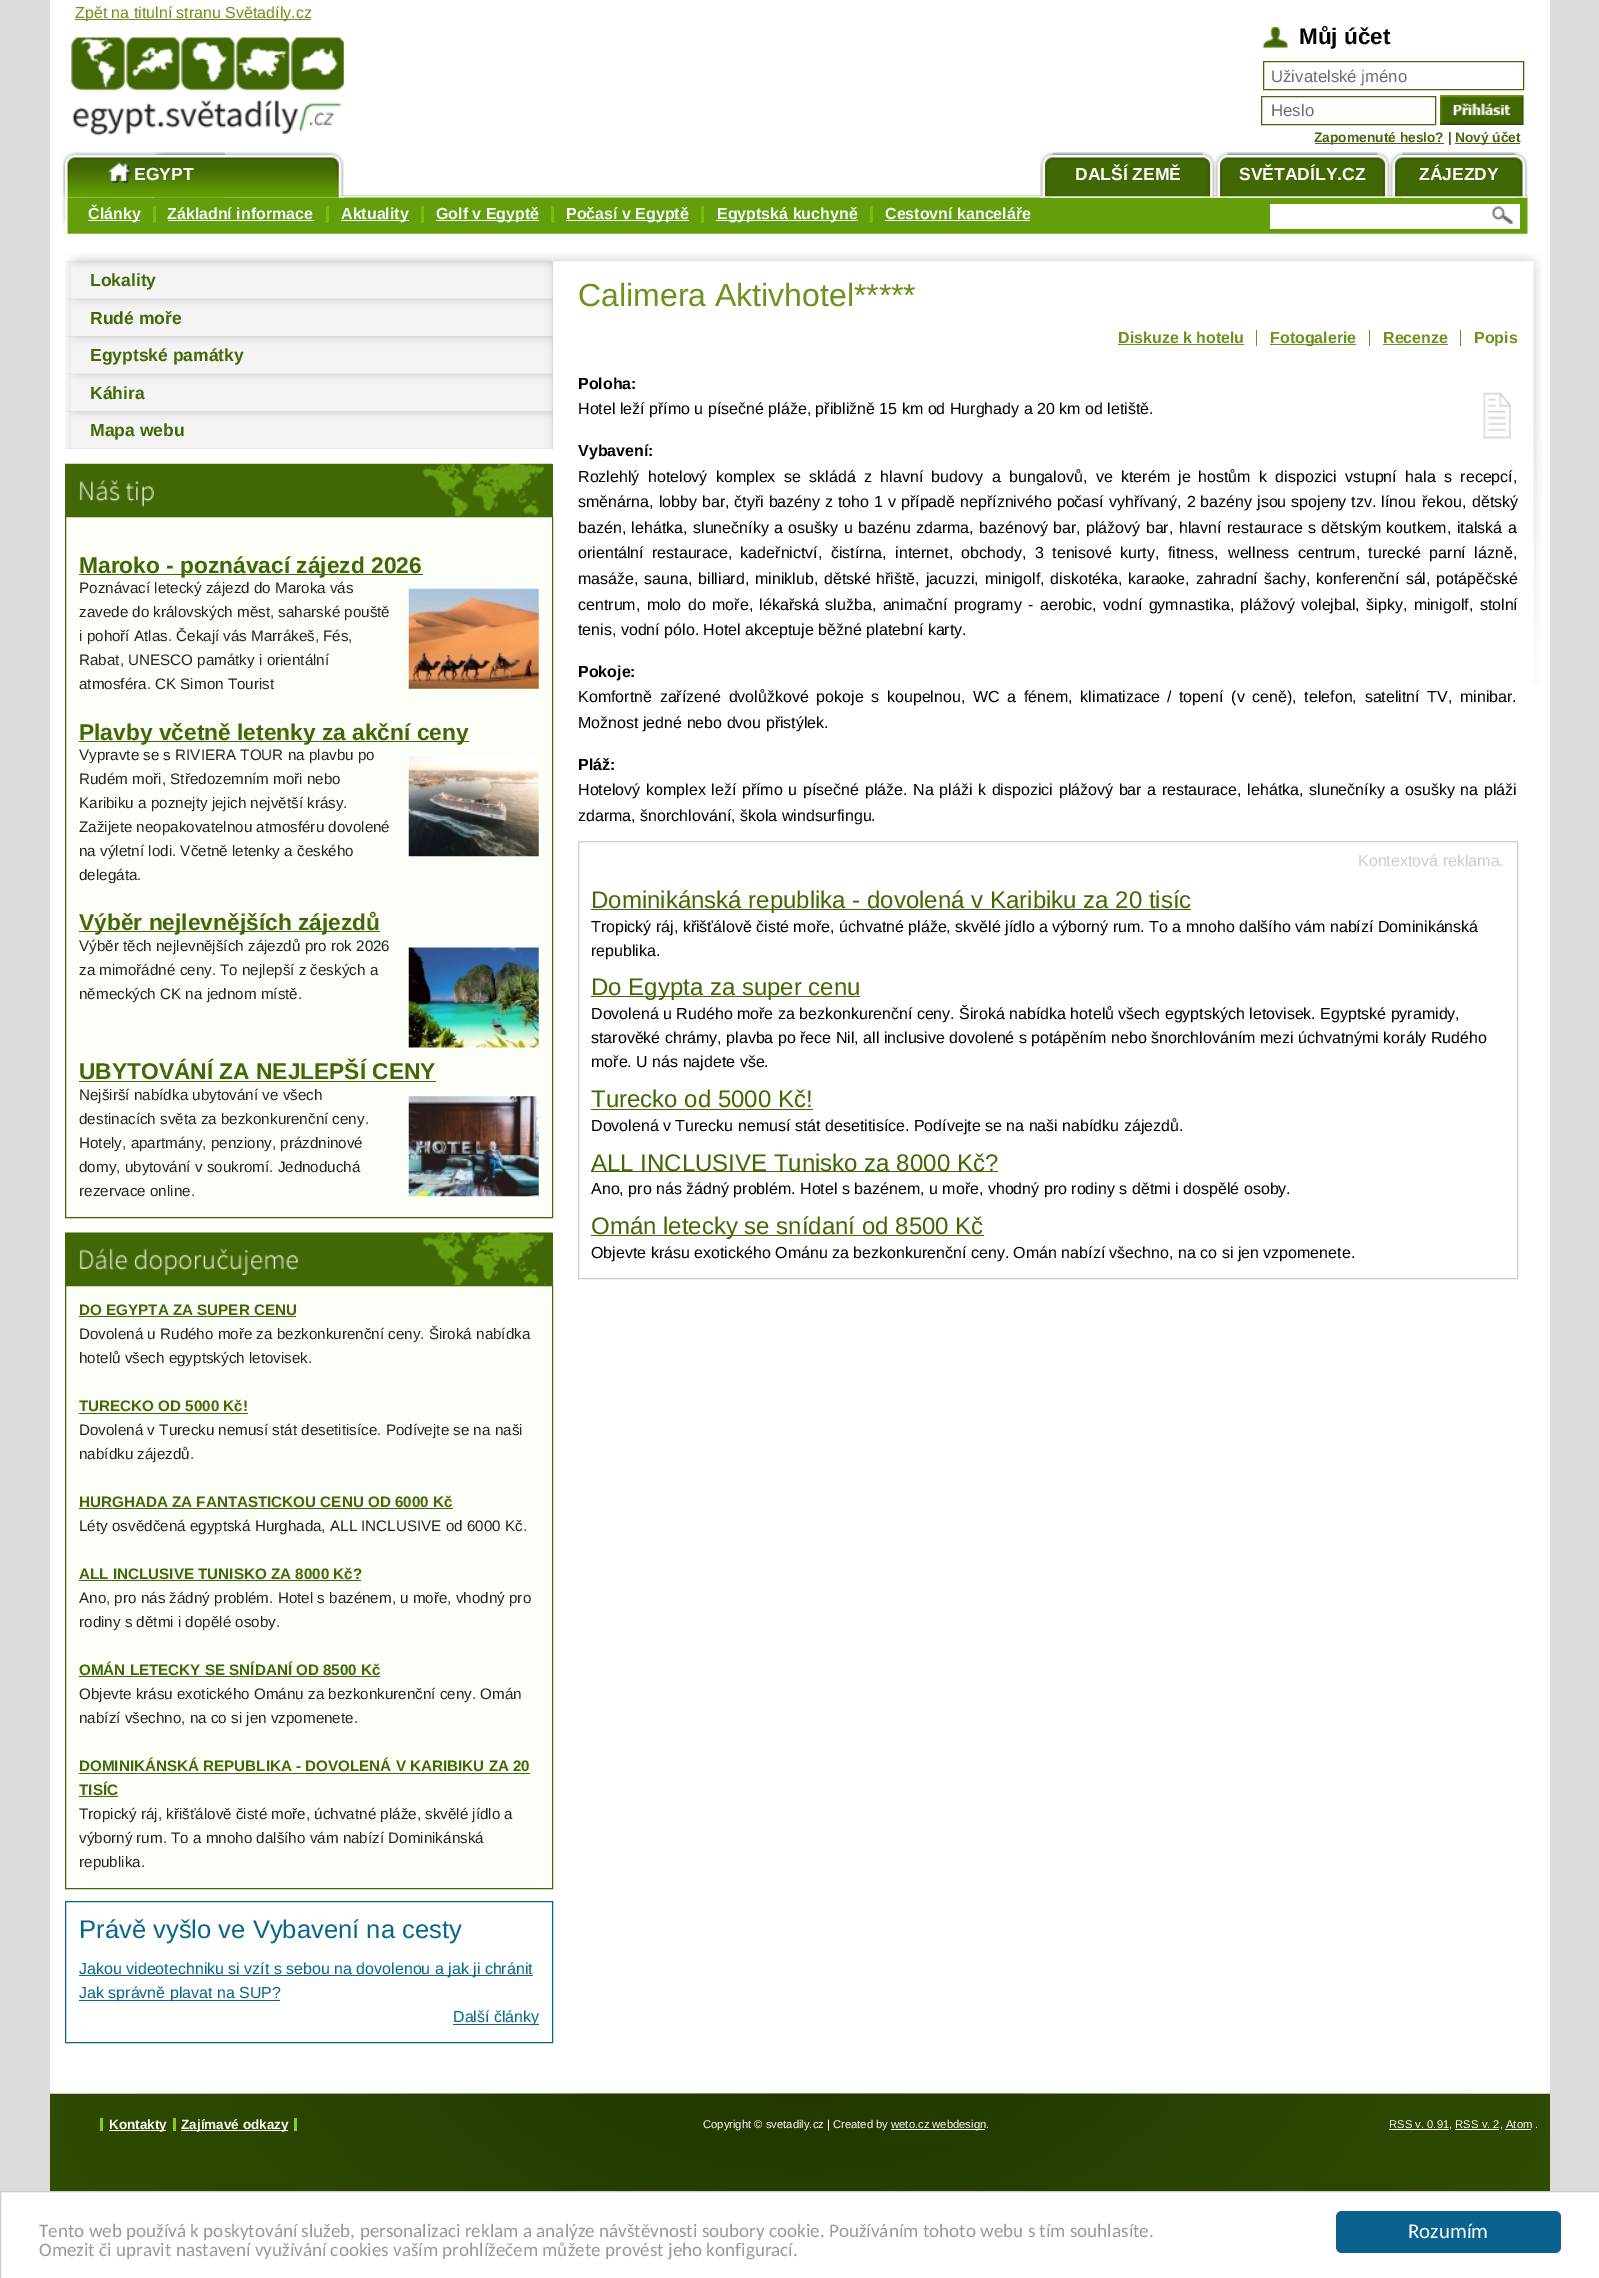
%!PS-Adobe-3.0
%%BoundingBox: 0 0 1599 2278
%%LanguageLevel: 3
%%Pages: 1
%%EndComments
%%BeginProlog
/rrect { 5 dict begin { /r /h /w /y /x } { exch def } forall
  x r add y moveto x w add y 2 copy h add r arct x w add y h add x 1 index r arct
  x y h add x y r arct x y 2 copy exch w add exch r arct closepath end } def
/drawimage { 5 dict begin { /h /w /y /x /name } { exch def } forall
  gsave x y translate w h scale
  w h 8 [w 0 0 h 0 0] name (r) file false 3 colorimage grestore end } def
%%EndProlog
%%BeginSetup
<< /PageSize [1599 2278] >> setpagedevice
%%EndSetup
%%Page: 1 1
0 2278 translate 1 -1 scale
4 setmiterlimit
0.863 setgray
0 0 1599 2278 rectfill
1 setgray
50 0 1500 2093 rectfill
0.424 0.573 0.11 setrgbcolor
75 19 236 1 rectfill
(images/1.raw) 71 37 273 99 drawimage
(images/2.raw) 65 195 1463 39 drawimage
(images/3.raw) 62 196 7 38 drawimage
(images/4.raw) 149 152 195 46 drawimage
(images/5.raw) 62 152 163 46 drawimage
(images/6.raw) 107 162 25 21 drawimage
(images/7.raw) 1052 152 163 46 drawimage
(images/8.raw) 1040 152 163 46 drawimage
(images/7.raw) 1227 152 163 46 drawimage
(images/9.raw) 1215 152 163 46 drawimage
(images/10.raw) 1402 152 126 46 drawimage
(images/11.raw) 1390 152 125 46 drawimage
0.945 1 1 setrgbcolor
88 220 52 1 rectfill
0.471 0.745 0.012 setrgbcolor
153 206 3 17 rectfill
0.945 1 1 setrgbcolor
168 220 146 1 rectfill
0.471 0.745 0.012 setrgbcolor
326 206 3 17 rectfill
0.945 1 1 setrgbcolor
341 220 68 1 rectfill
0.471 0.745 0.012 setrgbcolor
421 206 3 17 rectfill
0.945 1 1 setrgbcolor
436 220 103 1 rectfill
0.471 0.745 0.012 setrgbcolor
551 206 3 17 rectfill
0.945 1 1 setrgbcolor
566 220 123 1 rectfill
0.471 0.745 0.012 setrgbcolor
701 206 3 17 rectfill
0.945 1 1 setrgbcolor
716 220 142 1 rectfill
0.471 0.745 0.012 setrgbcolor
870 206 3 17 rectfill
0.945 1 1 setrgbcolor
885 220 145 1 rectfill
1 setgray
1270 204 250 25 rectfill
(images/12.raw) 1492 206 21 19 drawimage
(images/13.raw) 1262 26 26 23 drawimage
0.255 0.408 0.016 setrgbcolor
1263.5 61.5 260 28 rectstroke
1261.5 96.5 174 28 rectstroke
(images/14.raw) 1440 95 84 30 drawimage
0.278 0.396 0.059 setrgbcolor
1315 143 129 1 rectfill
1455 143 65 1 rectfill
(images/24.raw) 552 253 990 430 drawimage
1 setgray
552 253 1 8 rectfill
(images/15.raw) 66 253 487 8 drawimage
0.8 setgray
65 261 488 38 rectfill
(images/16.raw) 65 261 488 38 drawimage
552 299 1 37 rectfill
(images/17.raw) 65 299 488 37 drawimage
65 336 488 38 rectfill
(images/16.raw) 65 336 488 38 drawimage
552 374 1 37 rectfill
(images/17.raw) 65 374 488 37 drawimage
65 411 488 38 rectfill
(images/16.raw) 65 411 488 38 drawimage
0.255 0.408 0.016 setrgbcolor
552 464 1 52 rectfill
(images/18.raw) 65 463 488 53 drawimage
0.988 1 0.973 setrgbcolor
newpath 65.5 516.5 moveto 552.5 516.5 lineto 552.5 1217.5 lineto 65.5 1217.5 lineto closepath gsave fill grestore
0.255 0.408 0.016 setrgbcolor
stroke
79 574 344 1 rectfill
(images/19.raw) 408 588 131 101 drawimage
79 741 390 1 rectfill
(images/20.raw) 408 756 131 101 drawimage
79 931 301 1 rectfill
(images/21.raw) 408 947 131 101 drawimage
79 1081 357 1 rectfill
(images/22.raw) 408 1096 131 101 drawimage
552 1233 1 52 rectfill
(images/23.raw) 65 1232 488 53 drawimage
0.988 1 0.973 setrgbcolor
newpath 65.5 1285.5 moveto 552.5 1285.5 lineto 552.5 1888.5 lineto 65.5 1888.5 lineto closepath gsave fill grestore
0.255 0.408 0.016 setrgbcolor
stroke
79 1316 217 1 rectfill
79 1413 169 1 rectfill
79 1508 374 1 rectfill
79 1580 282 1 rectfill
79 1676 301 1 rectfill
79 1773 451 1 rectfill
79 1796 39 1 rectfill
0.035 0.404 0.545 setrgbcolor
65.5 1901.5 487 141 rectstroke
79 1975 454 1 rectfill
79 2000 201 1 rectfill
453 2024 86 1 rectfill
0.424 0.573 0.11 setrgbcolor
1256 330 1 16 rectfill
1118 344 126 1 rectfill
1369 330 1 16 rectfill
1270 344 86 1 rectfill
1460 330 1 16 rectfill
1383 344 65 1 rectfill
(images/25.raw) 1483 392 28 47 drawimage
0.8 setgray
578.5 841.5 939 437 rectstroke
0.255 0.408 0.016 setrgbcolor
591 909 600 1 rectfill
591 996 269 1 rectfill
591 1109 222 1 rectfill
591 1171 407 1 rectfill
591 1235 393 1 rectfill
(images/26.raw) 50 2093 1500 98 drawimage
0.529 0.808 0.082 setrgbcolor
173 2118 3 13 rectfill
100 2118 3 13 rectfill
1 setgray
109 2130 57 1 rectfill
0.529 0.808 0.082 setrgbcolor
294 2118 3 13 rectfill
1 setgray
181 2130 107 1 rectfill
891 2129 94 1 rectfill
1389 2129 60 1 rectfill
1455 2129 44 1 rectfill
1505 2129 26 1 rectfill
newpath 0.5 2191.5 moveto 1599.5 2191.5 lineto 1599.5 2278.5 lineto 0.5 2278.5 lineto closepath gsave fill grestore
0.8 setgray
stroke
0.043 0.384 0.561 setrgbcolor
1336 2211 225 42 6 rrect fill
/LiberationSans-Regular [16 0 0 -16 0 0] selectfont
0.424 0.573 0.11 setrgbcolor
75 18 moveto (Zpět na titulní stranu Světadíly.cz) show
/LiberationSans-Bold [17.5 0 0 -17.5 0 0] selectfont
1 setgray
134 180 moveto (EGYPT) show
1075 180 moveto (DALŠÍ ZEMĚ) show
1239 180 moveto (SVĚTADÍLY.CZ) show
1419 180 moveto (ZÁJEZDY) show
/LiberationSans-Bold [16 0 0 -16 0 0] selectfont
0.945 1 1 setrgbcolor
88 219 moveto (Články) show
167 219 moveto (Základní informace) show
341 219 moveto (Aktuality) show
436 219 moveto (Golf v Egyptě) show
566 219 moveto (Počasí v Egyptě) show
717 219 moveto (Egyptská kuchyně) show
885 219 moveto (Cestovní kanceláře) show
/LiberationSans-Bold [22.5 0 0 -22.5 0 0] selectfont
0.024 0.024 0.012 setrgbcolor
1299 44 moveto (Můj účet) show
/LiberationSans-Regular [16.75 0 0 -16.75 0 0] selectfont
0.427 setgray
1271 82 moveto (Uživatelské jméno) show
1271 116 moveto (Heslo) show
/LiberationSans-Bold [13.75 0 0 -13.75 0 0] selectfont
0.278 0.396 0.059 setrgbcolor
1314 142 moveto (Zapomenuté heslo? |) show
1455 142 moveto (Nový účet) show
/LiberationSans-Bold [17.5 0 0 -17.5 0 0] selectfont
0.255 0.408 0.016 setrgbcolor
90 286 moveto (Lokality) show
90 324 moveto (Rudé moře) show
90 361 moveto (Egyptské památky) show
90 399 moveto (Káhira) show
90 436 moveto (Mapa webu) show
/LiberationSans-Bold [22.75 0 0 -22.75 0 0] selectfont
79 573 moveto (Maroko - poznávací zájezd 2026) show
/LiberationSans-Regular [15.2 0 0 -15.2 0 0] selectfont
0.141 setgray
79 593 moveto (Poznávací letecký zájezd do Maroka vás) show
79 617 moveto (zavede do královských měst, saharské pouště) show
79 641 moveto (i pohoří Atlas. Čekají vás Marrákeš, Fés,) show
79 665 moveto (Rabat, UNESCO památky i orientální) show
79 689 moveto (atmosféra. CK Simon Tourist) show
/LiberationSans-Bold [22.75 0 0 -22.75 0 0] selectfont
0.255 0.408 0.016 setrgbcolor
79 740 moveto (Plavby včetně letenky za akční ceny) show
/LiberationSans-Regular [15.2 0 0 -15.2 0 0] selectfont
0.141 setgray
79 760 moveto (Vypravte se s RIVIERA TOUR na plavbu po) show
79 784 moveto (Rudém moři, Středozemním moři nebo) show
79 808 moveto (Karibiku a poznejty jejich největší krásy.) show
79 832 moveto (Zažijete neopakovatelnou atmosféru dovolené) show
79 856 moveto (na výletní lodi. Včetně letenky a českého) show
79 880 moveto (delegáta.) show
/LiberationSans-Bold [22.75 0 0 -22.75 0 0] selectfont
0.255 0.408 0.016 setrgbcolor
79 930 moveto (Výběr nejlevnějších zájezdů) show
/LiberationSans-Regular [15.2 0 0 -15.2 0 0] selectfont
0.141 setgray
79 951 moveto (Výběr těch nejlevnějších zájezdů pro rok 2026) show
79 975 moveto (za mimořádné ceny. To nejlepší z českých a) show
79 999 moveto (německých CK na jednom místě.) show
/LiberationSans-Bold [22.75 0 0 -22.75 0 0] selectfont
0.255 0.408 0.016 setrgbcolor
79 1079 moveto (UBYTOVÁNÍ ZA NEJLEPŠÍ CENY) show
/LiberationSans-Regular [15.2 0 0 -15.2 0 0] selectfont
0.141 setgray
79 1100 moveto (Nejširší nabídka ubytování ve všech) show
79 1124 moveto (destinacích světa za bezkonkurenční ceny.) show
79 1148 moveto (Hotely, apartmány, penziony, prázdninové) show
79 1172 moveto (domy, ubytování v soukromí. Jednoduchá) show
79 1196 moveto (rezervace online.) show
/LiberationSans-Bold [15.2 0 0 -15.2 0 0] selectfont
0.255 0.408 0.016 setrgbcolor
79 1315 moveto (DO EGYPTA ZA SUPER CENU) show
/LiberationSans-Regular [15.2 0 0 -15.2 0 0] selectfont
0.141 setgray
79 1339 moveto (Dovolená u Rudého moře za bezkonkurenční ceny. Široká nabídka) show
79 1363 moveto (hotelů všech egyptských letovisek.) show
/LiberationSans-Bold [15.2 0 0 -15.2 0 0] selectfont
0.255 0.408 0.016 setrgbcolor
79 1411 moveto (TURECKO OD 5000 Kč!) show
/LiberationSans-Regular [15.2 0 0 -15.2 0 0] selectfont
0.141 setgray
79 1435 moveto (Dovolená v Turecku nemusí stát desetitisíce. Podívejte se na naši) show
79 1459 moveto (nabídku zájezdů.) show
/LiberationSans-Bold [15.2 0 0 -15.2 0 0] selectfont
0.255 0.408 0.016 setrgbcolor
79 1507 moveto (HURGHADA ZA FANTASTICKOU CENU OD 6000 Kč) show
/LiberationSans-Regular [15.2 0 0 -15.2 0 0] selectfont
0.141 setgray
79 1531 moveto (Léty osvědčená egyptská Hurghada, ALL INCLUSIVE od 6000 Kč.) show
/LiberationSans-Bold [15.2 0 0 -15.2 0 0] selectfont
0.255 0.408 0.016 setrgbcolor
79 1579 moveto (ALL INCLUSIVE TUNISKO ZA 8000 Kč?) show
/LiberationSans-Regular [15.2 0 0 -15.2 0 0] selectfont
0.141 setgray
79 1603 moveto (Ano, pro nás žádný problém. Hotel s bazénem, u moře, vhodný pro) show
79 1627 moveto (rodiny s dětmi i dopělé osoby.) show
/LiberationSans-Bold [15.2 0 0 -15.2 0 0] selectfont
0.255 0.408 0.016 setrgbcolor
79 1675 moveto (OMÁN LETECKY SE SNÍDANÍ OD 8500 Kč) show
/LiberationSans-Regular [15.2 0 0 -15.2 0 0] selectfont
0.141 setgray
79 1699 moveto (Objevte krásu exotického Ománu za bezkonkurenční ceny. Omán) show
79 1723 moveto (nabízí všechno, na co si jen vzpomenete.) show
/LiberationSans-Bold [15.2 0 0 -15.2 0 0] selectfont
0.255 0.408 0.016 setrgbcolor
79 1771 moveto (DOMINIKÁNSKÁ REPUBLIKA - DOVOLENÁ V KARIBIKU ZA 20) show
79 1795 moveto (TISÍC) show
/LiberationSans-Regular [15.2 0 0 -15.2 0 0] selectfont
0.141 setgray
79 1819 moveto (Tropický ráj, křišťálově čisté moře, úchvatné pláže, skvělé jídlo a) show
79 1843 moveto (výborný rum. To a mnoho dalšího vám nabízí Dominikánská) show
79 1867 moveto (republika.) show
/LiberationSans-Regular [25.6 0 0 -25.6 0 0] selectfont
0.035 0.404 0.545 setrgbcolor
79 1938 moveto (Právě vyšlo ve Vybavení na cesty) show
/LiberationSans-Regular [16 0 0 -16 0 0] selectfont
79 1974 moveto (Jakou videotechniku si vzít s sebou na dovolenou a jak ji chránit) show
79 1998 moveto (Jak správně plavat na SUP?) show
453 2022 moveto (Další články) show
/LiberationSans-Regular [32 0 0 -32 0 0] selectfont
0.424 0.573 0.11 setrgbcolor
578 306 moveto (Calimera Aktivhotel*****) show
/LiberationSans-Bold [16 0 0 -16 0 0] selectfont
1118 343 moveto (Diskuze k hotelu) show
gsave
578 330 952 16 rectclip
1270 343 moveto (Fotogalerie) show
grestore
1383 343 moveto (Recenze) show
gsave
578 330 952 16 rectclip
1474 343 moveto (Popis) show
grestore
0 setgray
578 389 moveto (Poloha:) show
/LiberationSans-Regular [16 0 0 -16 0 0] selectfont
578 414 moveto (Hotel leží přímo u písečné pláže, přibližně 15 km od Hurghady a 20 km od letiště.) show
/LiberationSans-Bold [16 0 0 -16 0 0] selectfont
578 456 moveto (Vybavení:) show
/LiberationSans-Regular [16 0 0 -16 0 0] selectfont
578 482 moveto 4 0 32 (Rozlehlý hotelový komplex se skládá z hlavní budovy a bungalovů, ve kterém je) widthshow
1198 482 moveto 4 0 32 (hostům k dispozici vstupní hala s recepcí,) widthshow
578 507 moveto 0.5 0 32 (směnárna, lobby bar, čtyři bazény z) widthshow
838 507 moveto 0.5 0 32 (toho 1 v případě nepříznivého počasí vyhřívaný, 2 bazény jsou spojeny tzv. línou) widthshow
1422 507 moveto 1 0 32 (řekou, dětský) widthshow
578 533 moveto 1 0 32 (bazén, lehátka, slunečníky a osušky u bazénu zdarma, bazénový bar,) widthshow
1086 533 moveto 1 0 32 (plážový bar, hlavní restaurace s dětským koutkem, italská a) widthshow
578 558 moveto (orientální) show
652 558 moveto 4 0 32 (restaurace, kadeřnictví, čistírna, internet, obchody, 3 tenisové kurty, fitness,) widthshow
1228 558 moveto 4 0 32 (wellness centrum, turecké parní lázně,) widthshow
578 584 moveto 1.5 0 32 (masáže, sauna, billiard, miniklub, dětské) widthshow
876 584 moveto 1.5 0 32 (hřiště, jacuzzi, minigolf, diskotéka, karaoke, zahradní šachy, konferenční sál,) widthshow
1436 584 moveto (potápěčské) show
578 610 moveto 2 0 32 (centrum, molo do moře, lékařská služba, animační programy - aerobic,) widthshow
1103 610 moveto 2 0 32 (vodní gymnastika, plážový volejbal, šipky, minigolf, stolní) widthshow
578 635 moveto (tenis, vodní pólo. Hotel akceptuje běžné platební karty.) show
/LiberationSans-Bold [16 0 0 -16 0 0] selectfont
578 677 moveto (Pokoje:) show
/LiberationSans-Regular [16 0 0 -16 0 0] selectfont
578 702 moveto 3.25 0 32 (Komfortně zařízené dvolůžkové pokoje s koupelnou, WC a fénem, klimatizace /) widthshow
1179 702 moveto 3.25 0 32 (topení \(v ceně\), telefon, satelitní TV, minibar.) widthshow
578 728 moveto (Možnost jedné nebo dvou přistýlek.) show
/LiberationSans-Bold [16 0 0 -16 0 0] selectfont
578 770 moveto (Pláž:) show
/LiberationSans-Regular [16 0 0 -16 0 0] selectfont
578 795 moveto 1.25 0 32 (Hotelový komplex leží přímo u písečné pláže. Na pláži k dispozici plážový bar) widthshow
1147 795 moveto 1.25 0 32 (a restaurace, lehátka, slunečníky a osušky na pláži) widthshow
578 821 moveto (zdarma, šnorchlování, škola windsurfingu.) show
0.8 setgray
1358 866 moveto (Kontextová reklama.) show
/LiberationSans-Regular [24 0 0 -24 0 0] selectfont
0.255 0.408 0.016 setrgbcolor
591 908 moveto (Dominikánská republika - dovolená v Karibiku za 20 tisíc) show
/LiberationSans-Regular [16 0 0 -16 0 0] selectfont
0 setgray
591 932 moveto (Tropický ráj, křišťálově čisté moře, úchvatné pláže, skvělé jídlo a výborný rum. To a mnoho dalšího vám nabízí Dominikánská) show
591 956 moveto (republika.) show
/LiberationSans-Regular [24 0 0 -24 0 0] selectfont
0.255 0.408 0.016 setrgbcolor
591 995 moveto (Do Egypta za super cenu) show
/LiberationSans-Regular [16 0 0 -16 0 0] selectfont
0 setgray
591 1019 moveto (Dovolená u Rudého moře za bezkonkurenční ceny. Široká nabídka hotelů všech egyptských letovisek. Egyptské pyramidy,) show
591 1043 moveto (starověké chrámy, plavba po řece Nil, all inclusive dovolené s potápěním nebo šnorchlováním mezi úchvatnými korály Rudého) show
591 1067 moveto (moře. U nás najdete vše.) show
/LiberationSans-Regular [24 0 0 -24 0 0] selectfont
0.255 0.408 0.016 setrgbcolor
591 1107 moveto (Turecko od 5000 Kč!) show
/LiberationSans-Regular [16 0 0 -16 0 0] selectfont
0 setgray
591 1131 moveto (Dovolená v Turecku nemusí stát desetitisíce. Podívejte se na naši nabídku zájezdů.) show
/LiberationSans-Regular [24 0 0 -24 0 0] selectfont
0.255 0.408 0.016 setrgbcolor
591 1171 moveto (ALL INCLUSIVE Tunisko za 8000 Kč?) show
/LiberationSans-Regular [16 0 0 -16 0 0] selectfont
0 setgray
591 1194 moveto (Ano, pro nás žádný problém. Hotel s bazénem, u moře, vhodný pro rodiny s dětmi i dospělé osoby.) show
/LiberationSans-Regular [24 0 0 -24 0 0] selectfont
0.255 0.408 0.016 setrgbcolor
591 1234 moveto (Omán letecky se snídaní od 8500 Kč) show
/LiberationSans-Regular [16 0 0 -16 0 0] selectfont
0 setgray
591 1258 moveto (Objevte krásu exotického Ománu za bezkonkurenční ceny. Omán nabízí všechno, na co si jen vzpomenete.) show
/LiberationSans-Bold [13.5 0 0 -13.5 0 0] selectfont
1 setgray
109 2129 moveto (Kontakty) show
181 2129 moveto (Zajímavé odkazy) show
/LiberationSans-Regular [11.25 0 0 -11.25 0 0] selectfont
703 2128 moveto (Copyright © svetadily.cz | Created by) show
891 2128 moveto (weto.cz webdesign.) show
1389 2128 moveto (RSS v. 0.91, RSS v. 2, Atom .) show
/Carlito-Regular [19.12 0 0 -19.12 0 0] selectfont
0.6 setgray
39 2237 moveto (Tento web používá k poskytování služeb, personalizaci reklam a analýze návštěvnosti soubory cookie. Používáním tohoto webu s tím souhlasíte.) show
39 2256 moveto (Omezit či upravit nastavení využívání cookies vaším prohlížečem můžete provést jeho konfigurací.) show
/Carlito-Regular [21 0 0 -21 0 0] selectfont
1 setgray
1408 2238 moveto (Rozumím) show
showpage
%%EOF
